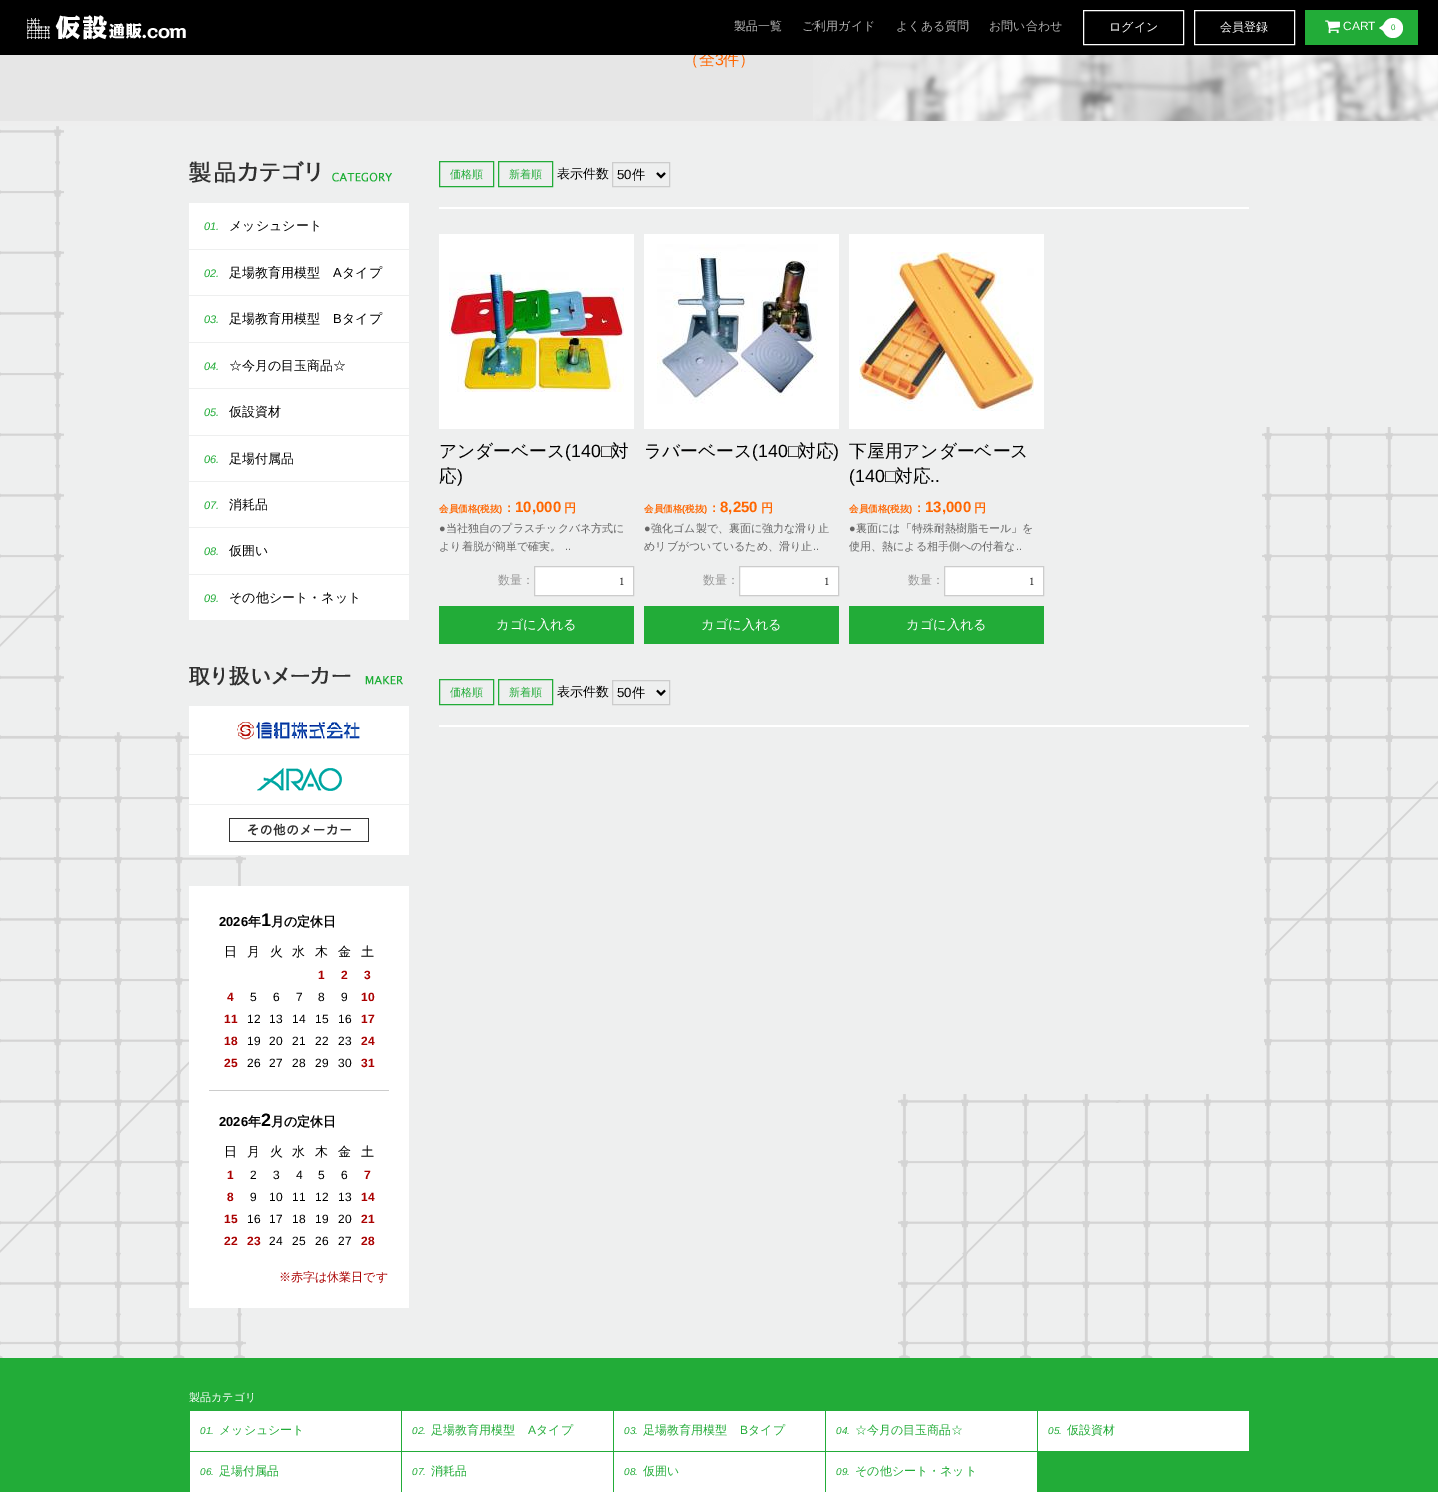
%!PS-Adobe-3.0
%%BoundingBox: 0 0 1438 1492
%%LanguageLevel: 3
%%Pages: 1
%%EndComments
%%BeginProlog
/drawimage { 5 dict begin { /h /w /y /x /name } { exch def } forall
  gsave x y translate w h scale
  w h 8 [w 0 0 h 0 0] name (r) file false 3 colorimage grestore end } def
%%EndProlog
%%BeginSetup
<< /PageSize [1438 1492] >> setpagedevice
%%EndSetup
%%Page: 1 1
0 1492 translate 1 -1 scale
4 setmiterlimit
0.933 setgray
0 0 1438 1492 rectfill
(images/3.raw) 0 126 1438 1232 drawimage
0.902 setgray
0 55 813 66 rectfill
(images/4.raw) 813 55 625 66 drawimage
(images/5.raw) 189 161 203 22 drawimage
1 setgray
189 203 220 46 rectfill
189 250 220 45 rectfill
189 296 220 46 rectfill
189 343 220 45 rectfill
189 389 220 46 rectfill
189 436 220 45 rectfill
189 482 220 45 rectfill
189 528 220 46 rectfill
189 575 220 45 rectfill
(images/6.raw) 189 666 214 20 drawimage
189 706 220 48 rectfill
0.933 setgray
238 754 3 1 rectfill
(images/7.raw) 237 722 123 18 drawimage
1 setgray
189 755 220 49 rectfill
0.933 setgray
238 804 3 1 rectfill
(images/8.raw) 257 768 85 23 drawimage
1 setgray
189 805 220 50 rectfill
0.933 setgray
238 855 3 1 rectfill
(images/9.raw) 229 818 140 24 drawimage
1 setgray
189 886 220 422 rectfill
0.8 setgray
209 1090 180 1 rectfill
1 setgray
439 207 810 2 rectfill
0.133 0.675 0.22 setrgbcolor
439.5 161.5 54 25 rectstroke
498.5 161.5 54 25 rectstroke
0.8 setgray
612.5 162.5 57 24 rectstroke
0 setgray
2 setlinewidth
newpath 657 173 moveto 661 177 lineto 665 173 lineto stroke
1 setgray
439 234 195 195 rectfill
(images/10.raw) 449 272 175 120 drawimage
newpath 534.5 566.5 moveto 633.5 566.5 lineto 633.5 595.5 lineto 534.5 595.5 lineto closepath gsave fill grestore
0.8 setgray
1 setlinewidth
stroke
0.133 0.675 0.22 setrgbcolor
439 606 195 38 rectfill
1 setgray
644 234 195 195 rectfill
(images/11.raw) 657 244 161 160 drawimage
newpath 739.5 566.5 moveto 838.5 566.5 lineto 838.5 595.5 lineto 739.5 595.5 lineto closepath gsave fill grestore
0.8 setgray
stroke
0.133 0.675 0.22 setrgbcolor
644 606 195 38 rectfill
1 setgray
849 234 195 195 rectfill
(images/12.raw) 859 252 175 159 drawimage
newpath 944.5 566.5 moveto 1043.5 566.5 lineto 1043.5 595.5 lineto 944.5 595.5 lineto closepath gsave fill grestore
0.8 setgray
stroke
0.133 0.675 0.22 setrgbcolor
849 606 195 38 rectfill
1 setgray
439 725 810 2 rectfill
0.133 0.675 0.22 setrgbcolor
439.5 679.5 54 25 rectstroke
498.5 679.5 54 25 rectstroke
0.8 setgray
612.5 680.5 57 24 rectstroke
0 setgray
2 setlinewidth
newpath 657 690.5 moveto 661 694.5 lineto 665 690.5 lineto stroke
0.133 0.675 0.22 setrgbcolor
0 1358 1438 134 rectfill
1 setgray
190 1411 211 40 rectfill
402 1411 211 40 rectfill
614 1411 211 40 rectfill
826 1411 211 40 rectfill
1038 1411 211 40 rectfill
190 1452 211 40 rectfill
402 1452 211 40 rectfill
614 1452 211 40 rectfill
826 1452 211 40 rectfill
/WenQuanYiZenHei-Medium [16 0 0 -16 0 0] selectfont
1 0.4 0 setrgbcolor
683 65 moveto (（全) show
/LiberationSans-Regular [16 0 0 -16 0 0] selectfont
715 65 moveto (3) show
/WenQuanYiZenHei-Medium [16 0 0 -16 0 0] selectfont
723 65 moveto (件）) show
0 setgray
0 0 1438 55 rectfill
0.133 0.675 0.22 setrgbcolor
1305 10 113 35 rectfill
1 setgray
newpath 1393 28 10 0 360 arc closepath fill
newpath 1385 24 moveto 1385 32 lineto 1379 28 lineto closepath fill
/LiberationSans-Regular [8 0 0 -8 0 0] selectfont
0.133 0.675 0.22 setrgbcolor
1391 30 moveto (0) show
(images/2.raw) 1325 20 15 14 drawimage
/WenQuanYiZenHei-Medium [12 0 0 -12 0 0] selectfont
0.702 setgray
989 30 moveto (お問い合わせ) show
896 30 moveto (よくある質問) show
802 30 moveto (ご利用ガイド) show
734 30 moveto (製品一覧) show
/LiberationSans-Regular [12 0 0 -12 0 0] selectfont
1 setgray
1343 30 moveto (CART) show
1 setlinewidth
1194.5 10.5 100 34 rectstroke
/WenQuanYiZenHei-Medium [12 0 0 -12 0 0] selectfont
1220 31 moveto (会員登録) show
1083.5 10.5 100 34 rectstroke
1109 31 moveto (ログイン) show
(images/1.raw) 27 15 159 25 drawimage
/LiberationSans-Italic [11 0 0 -11 0 0] selectfont
0.133 0.675 0.22 setrgbcolor
204 230 moveto (01.) show
/WenQuanYiZenHei-Medium [13 0 0 -13 0 0] selectfont
0 setgray
229 230 moveto (メッシュシート) show
/LiberationSans-Italic [11 0 0 -11 0 0] selectfont
0.133 0.675 0.22 setrgbcolor
204 277 moveto (02.) show
/WenQuanYiZenHei-Medium [13 0 0 -13 0 0] selectfont
0 setgray
229 277 moveto (足場教育用模型) show
/LiberationSans-Regular [13 0 0 -13 0 0] selectfont
333 277 moveto (A) show
/WenQuanYiZenHei-Medium [13 0 0 -13 0 0] selectfont
342 277 moveto (タイプ) show
/LiberationSans-Italic [11 0 0 -11 0 0] selectfont
0.133 0.675 0.22 setrgbcolor
204 323 moveto (03.) show
/WenQuanYiZenHei-Medium [13 0 0 -13 0 0] selectfont
0 setgray
229 323 moveto (足場教育用模型) show
/LiberationSans-Regular [13 0 0 -13 0 0] selectfont
333 323 moveto (B) show
/WenQuanYiZenHei-Medium [13 0 0 -13 0 0] selectfont
342 323 moveto (タイプ) show
/LiberationSans-Italic [11 0 0 -11 0 0] selectfont
0.133 0.675 0.22 setrgbcolor
204 370 moveto (04.) show
/WenQuanYiZenHei-Medium [13 0 0 -13 0 0] selectfont
0 setgray
229 370 moveto (☆今月の目玉商品☆) show
/LiberationSans-Italic [11 0 0 -11 0 0] selectfont
0.133 0.675 0.22 setrgbcolor
204 416 moveto (05.) show
/WenQuanYiZenHei-Medium [13 0 0 -13 0 0] selectfont
0 setgray
229 416 moveto (仮設資材) show
/LiberationSans-Italic [11 0 0 -11 0 0] selectfont
0.133 0.675 0.22 setrgbcolor
204 463 moveto (06.) show
/WenQuanYiZenHei-Medium [13 0 0 -13 0 0] selectfont
0 setgray
229 463 moveto (足場付属品) show
/LiberationSans-Italic [11 0 0 -11 0 0] selectfont
0.133 0.675 0.22 setrgbcolor
204 509 moveto (07.) show
/WenQuanYiZenHei-Medium [13 0 0 -13 0 0] selectfont
0 setgray
229 509 moveto (消耗品) show
/LiberationSans-Italic [11 0 0 -11 0 0] selectfont
0.133 0.675 0.22 setrgbcolor
204 555 moveto (08.) show
/WenQuanYiZenHei-Medium [13 0 0 -13 0 0] selectfont
0 setgray
229 555 moveto (仮囲い) show
/LiberationSans-Italic [11 0 0 -11 0 0] selectfont
0.133 0.675 0.22 setrgbcolor
204 602 moveto (09.) show
/WenQuanYiZenHei-Medium [13 0 0 -13 0 0] selectfont
0 setgray
229 602 moveto (その他シート・ネット) show
/LiberationSans-Bold [13 0 0 -13 0 0] selectfont
219 926 moveto (2026) show
/WenQuanYiZenHei-Bold [13 0 0 -13 0 0] selectfont
248 926 moveto (年) show
/LiberationSans-Bold [18 0 0 -18 0 0] selectfont
261 926 moveto (1) show
/WenQuanYiZenHei-Bold [13 0 0 -13 0 0] selectfont
271 926 moveto (月の定休日) show
/WenQuanYiZenHei-Medium [13 0 0 -13 0 0] selectfont
224 956 moveto (日) show
247 956 moveto (月) show
270 956 moveto (火) show
292 956 moveto (水) show
315 956 moveto (木) show
338 956 moveto (金) show
361 956 moveto (土) show
/LiberationSans-Bold [12 0 0 -12 0 0] selectfont
0.667 0 0 setrgbcolor
318 979 moveto (1) show
341 979 moveto (2) show
364 979 moveto (3) show
227 1001 moveto (4) show
/LiberationSans-Regular [12 0 0 -12 0 0] selectfont
0 setgray
250 1001 moveto (5) show
273 1001 moveto (6) show
296 1001 moveto (7) show
318 1001 moveto (8) show
341 1001 moveto (9) show
/LiberationSans-Bold [12 0 0 -12 0 0] selectfont
0.667 0 0 setrgbcolor
361 1001 moveto (10) show
224 1023 moveto (11) show
/LiberationSans-Regular [12 0 0 -12 0 0] selectfont
0 setgray
247 1023 moveto (12) show
269 1023 moveto (13) show
292 1023 moveto (14) show
315 1023 moveto (15) show
338 1023 moveto (16) show
/LiberationSans-Bold [12 0 0 -12 0 0] selectfont
0.667 0 0 setrgbcolor
361 1023 moveto (17) show
224 1045 moveto (18) show
/LiberationSans-Regular [12 0 0 -12 0 0] selectfont
0 setgray
247 1045 moveto (19) show
269 1045 moveto (20) show
292 1045 moveto (21) show
315 1045 moveto (22) show
338 1045 moveto (23) show
/LiberationSans-Bold [12 0 0 -12 0 0] selectfont
0.667 0 0 setrgbcolor
361 1045 moveto (24) show
224 1067 moveto (25) show
/LiberationSans-Regular [12 0 0 -12 0 0] selectfont
0 setgray
247 1067 moveto (26) show
269 1067 moveto (27) show
292 1067 moveto (28) show
315 1067 moveto (29) show
338 1067 moveto (30) show
/LiberationSans-Bold [12 0 0 -12 0 0] selectfont
0.667 0 0 setrgbcolor
361 1067 moveto (31) show
/LiberationSans-Bold [13 0 0 -13 0 0] selectfont
0 setgray
219 1126 moveto (2026) show
/WenQuanYiZenHei-Bold [13 0 0 -13 0 0] selectfont
248 1126 moveto (年) show
/LiberationSans-Bold [18 0 0 -18 0 0] selectfont
261 1126 moveto (2) show
/WenQuanYiZenHei-Bold [13 0 0 -13 0 0] selectfont
271 1126 moveto (月の定休日) show
/WenQuanYiZenHei-Medium [13 0 0 -13 0 0] selectfont
224 1156 moveto (日) show
247 1156 moveto (月) show
270 1156 moveto (火) show
292 1156 moveto (水) show
315 1156 moveto (木) show
338 1156 moveto (金) show
361 1156 moveto (土) show
/LiberationSans-Bold [12 0 0 -12 0 0] selectfont
0.667 0 0 setrgbcolor
227 1179 moveto (1) show
/LiberationSans-Regular [12 0 0 -12 0 0] selectfont
0 setgray
250 1179 moveto (2) show
273 1179 moveto (3) show
296 1179 moveto (4) show
318 1179 moveto (5) show
341 1179 moveto (6) show
/LiberationSans-Bold [12 0 0 -12 0 0] selectfont
0.667 0 0 setrgbcolor
364 1179 moveto (7) show
227 1201 moveto (8) show
/LiberationSans-Regular [12 0 0 -12 0 0] selectfont
0 setgray
250 1201 moveto (9) show
269 1201 moveto (10) show
292 1201 moveto (11) show
315 1201 moveto (12) show
338 1201 moveto (13) show
/LiberationSans-Bold [12 0 0 -12 0 0] selectfont
0.667 0 0 setrgbcolor
361 1201 moveto (14) show
224 1223 moveto (15) show
/LiberationSans-Regular [12 0 0 -12 0 0] selectfont
0 setgray
247 1223 moveto (16) show
269 1223 moveto (17) show
292 1223 moveto (18) show
315 1223 moveto (19) show
338 1223 moveto (20) show
/LiberationSans-Bold [12 0 0 -12 0 0] selectfont
0.667 0 0 setrgbcolor
361 1223 moveto (21) show
224 1245 moveto (22) show
247 1245 moveto (23) show
/LiberationSans-Regular [12 0 0 -12 0 0] selectfont
0 setgray
269 1245 moveto (24) show
292 1245 moveto (25) show
315 1245 moveto (26) show
338 1245 moveto (27) show
/LiberationSans-Bold [12 0 0 -12 0 0] selectfont
0.667 0 0 setrgbcolor
361 1245 moveto (28) show
/WenQuanYiZenHei-Medium [12 0 0 -12 0 0] selectfont
279 1281 moveto (※赤字は休業日です) show
/WenQuanYiZenHei-Medium [11 0 0 -11 0 0] selectfont
0.133 0.675 0.22 setrgbcolor
450 178 moveto (価格順) show
509 178 moveto (新着順) show
/WenQuanYiZenHei-Medium [13 0 0 -13 0 0] selectfont
0 setgray
557 178 moveto (表示件数) show
/LiberationSans-Regular [13.25 0 0 -13.25 0 0] selectfont
617 179 moveto (50) show
/WenQuanYiZenHei-Medium [13.25 0 0 -13.25 0 0] selectfont
632 179 moveto (件) show
/WenQuanYiZenHei-Medium [17.75 0 0 -17.75 0 0] selectfont
439 457 moveto (アンダーベース) show
/LiberationSans-Regular [17.75 0 0 -17.75 0 0] selectfont
565 457 moveto (\(140□) show
/WenQuanYiZenHei-Medium [17.75 0 0 -17.75 0 0] selectfont
611 457 moveto (対) show
439 482 moveto (応) show
/LiberationSans-Regular [17.75 0 0 -17.75 0 0] selectfont
457 482 moveto (\)) show
/WenQuanYiZenHei-Bold [9.5 0 0 -9.5 0 0] selectfont
1 0.4 0 setrgbcolor
439 512 moveto (会員価格) show
/LiberationSans-Bold [9.5 0 0 -9.5 0 0] selectfont
477 512 moveto (\() show
/WenQuanYiZenHei-Bold [9.5 0 0 -9.5 0 0] selectfont
480 512 moveto (税抜) show
/LiberationSans-Bold [9.5 0 0 -9.5 0 0] selectfont
499 512 moveto (\)) show
/WenQuanYiZenHei-Bold [12 0 0 -12 0 0] selectfont
503 512 moveto (：) show
/LiberationSans-Bold [15 0 0 -15 0 0] selectfont
515 512 moveto (10,000) show
/WenQuanYiZenHei-Bold [12 0 0 -12 0 0] selectfont
564 512 moveto (円) show
/LiberationSans-Regular [11 0 0 -11 0 0] selectfont
0.4 setgray
439 532 moveto (●) show
/WenQuanYiZenHei-Medium [11 0 0 -11 0 0] selectfont
446 532 moveto (当社独自のプラスチックバネ方式に) show
439 550 moveto (より着脱が簡単で確実。) show
/LiberationSans-Regular [11 0 0 -11 0 0] selectfont
565 550 moveto (..) show
/WenQuanYiZenHei-Medium [12 0 0 -12 0 0] selectfont
0.6 setgray
498 584 moveto (数量：) show
/LiberationSerif-Regular [11 0 0 -11 0 0] selectfont
0 setgray
619 585 moveto (1) show
/WenQuanYiZenHei-Medium [13.25 0 0 -13.25 0 0] selectfont
1 setgray
496 629 moveto (カゴに入れる) show
/WenQuanYiZenHei-Medium [17.75 0 0 -17.75 0 0] selectfont
0 setgray
644 457 moveto (ラバーベース) show
/LiberationSans-Regular [17.75 0 0 -17.75 0 0] selectfont
752 457 moveto (\(140□) show
/WenQuanYiZenHei-Medium [17.75 0 0 -17.75 0 0] selectfont
798 457 moveto (対応) show
/LiberationSans-Regular [17.75 0 0 -17.75 0 0] selectfont
833 457 moveto (\)) show
/WenQuanYiZenHei-Bold [9.5 0 0 -9.5 0 0] selectfont
1 0.4 0 setrgbcolor
644 512 moveto (会員価格) show
/LiberationSans-Bold [9.5 0 0 -9.5 0 0] selectfont
682 512 moveto (\() show
/WenQuanYiZenHei-Bold [9.5 0 0 -9.5 0 0] selectfont
685 512 moveto (税抜) show
/LiberationSans-Bold [9.5 0 0 -9.5 0 0] selectfont
704 512 moveto (\)) show
/WenQuanYiZenHei-Bold [12 0 0 -12 0 0] selectfont
708 512 moveto (：) show
/LiberationSans-Bold [15 0 0 -15 0 0] selectfont
720 512 moveto (8,250) show
/WenQuanYiZenHei-Bold [12 0 0 -12 0 0] selectfont
761 512 moveto (円) show
/LiberationSans-Regular [11 0 0 -11 0 0] selectfont
0.4 setgray
644 532 moveto (●) show
/WenQuanYiZenHei-Medium [11 0 0 -11 0 0] selectfont
651 532 moveto (強化ゴム製で、裏面に強力な滑り止) show
644 550 moveto (めリブがついているため、滑り止) show
/LiberationSans-Regular [11 0 0 -11 0 0] selectfont
813 550 moveto (..) show
/WenQuanYiZenHei-Medium [12 0 0 -12 0 0] selectfont
0.6 setgray
703 584 moveto (数量：) show
/LiberationSerif-Regular [11 0 0 -11 0 0] selectfont
0 setgray
824 585 moveto (1) show
/WenQuanYiZenHei-Medium [13.25 0 0 -13.25 0 0] selectfont
1 setgray
701 629 moveto (カゴに入れる) show
/WenQuanYiZenHei-Medium [17.75 0 0 -17.75 0 0] selectfont
0 setgray
849 457 moveto (下屋用アンダーベース) show
/LiberationSans-Regular [17.75 0 0 -17.75 0 0] selectfont
849 482 moveto (\(140□) show
/WenQuanYiZenHei-Medium [17.75 0 0 -17.75 0 0] selectfont
895 482 moveto (対応) show
/LiberationSans-Regular [17.75 0 0 -17.75 0 0] selectfont
930 482 moveto (..) show
/WenQuanYiZenHei-Bold [9.5 0 0 -9.5 0 0] selectfont
1 0.4 0 setrgbcolor
849 512 moveto (会員価格) show
/LiberationSans-Bold [9.5 0 0 -9.5 0 0] selectfont
887 512 moveto (\() show
/WenQuanYiZenHei-Bold [9.5 0 0 -9.5 0 0] selectfont
890 512 moveto (税抜) show
/LiberationSans-Bold [9.5 0 0 -9.5 0 0] selectfont
909 512 moveto (\)) show
/WenQuanYiZenHei-Bold [12 0 0 -12 0 0] selectfont
913 512 moveto (：) show
/LiberationSans-Bold [15 0 0 -15 0 0] selectfont
925 512 moveto (13,000) show
/WenQuanYiZenHei-Bold [12 0 0 -12 0 0] selectfont
974 512 moveto (円) show
/LiberationSans-Regular [11 0 0 -11 0 0] selectfont
0.4 setgray
849 532 moveto (●) show
/WenQuanYiZenHei-Medium [11 0 0 -11 0 0] selectfont
856 532 moveto (裏面には「特殊耐熱樹脂モール」を) show
849 550 moveto (使用、熱による相手側への付着な) show
/LiberationSans-Regular [11 0 0 -11 0 0] selectfont
1016 550 moveto (..) show
/WenQuanYiZenHei-Medium [12 0 0 -12 0 0] selectfont
0.6 setgray
908 584 moveto (数量：) show
/LiberationSerif-Regular [11 0 0 -11 0 0] selectfont
0 setgray
1029 585 moveto (1) show
/WenQuanYiZenHei-Medium [13.25 0 0 -13.25 0 0] selectfont
1 setgray
906 629 moveto (カゴに入れる) show
/WenQuanYiZenHei-Medium [11 0 0 -11 0 0] selectfont
0.133 0.675 0.22 setrgbcolor
450 696 moveto (価格順) show
509 696 moveto (新着順) show
/WenQuanYiZenHei-Medium [13 0 0 -13 0 0] selectfont
0 setgray
557 696 moveto (表示件数) show
/LiberationSans-Regular [13.25 0 0 -13.25 0 0] selectfont
617 697 moveto (50) show
/WenQuanYiZenHei-Medium [13.25 0 0 -13.25 0 0] selectfont
632 697 moveto (件) show
/WenQuanYiZenHei-Medium [11 0 0 -11 0 0] selectfont
1 setgray
189 1401 moveto (製品カテゴリ) show
/LiberationSans-Italic [10 0 0 -10 0 0] selectfont
0.133 0.675 0.22 setrgbcolor
200 1434 moveto (01.) show
/WenQuanYiZenHei-Medium [12 0 0 -12 0 0] selectfont
219 1434 moveto (メッシュシート) show
/LiberationSans-Italic [10 0 0 -10 0 0] selectfont
412 1434 moveto (02.) show
/WenQuanYiZenHei-Medium [12 0 0 -12 0 0] selectfont
431 1434 moveto (足場教育用模型) show
/LiberationSans-Regular [12 0 0 -12 0 0] selectfont
528 1434 moveto (A) show
/WenQuanYiZenHei-Medium [12 0 0 -12 0 0] selectfont
536 1434 moveto (タイプ) show
/LiberationSans-Italic [10 0 0 -10 0 0] selectfont
624 1434 moveto (03.) show
/WenQuanYiZenHei-Medium [12 0 0 -12 0 0] selectfont
643 1434 moveto (足場教育用模型) show
/LiberationSans-Regular [12 0 0 -12 0 0] selectfont
740 1434 moveto (B) show
/WenQuanYiZenHei-Medium [12 0 0 -12 0 0] selectfont
748 1434 moveto (タイプ) show
/LiberationSans-Italic [10 0 0 -10 0 0] selectfont
836 1434 moveto (04.) show
/WenQuanYiZenHei-Medium [12 0 0 -12 0 0] selectfont
855 1434 moveto (☆今月の目玉商品☆) show
/LiberationSans-Italic [10 0 0 -10 0 0] selectfont
1048 1434 moveto (05.) show
/WenQuanYiZenHei-Medium [12 0 0 -12 0 0] selectfont
1067 1434 moveto (仮設資材) show
/LiberationSans-Italic [10 0 0 -10 0 0] selectfont
200 1475 moveto (06.) show
/WenQuanYiZenHei-Medium [12 0 0 -12 0 0] selectfont
219 1475 moveto (足場付属品) show
/LiberationSans-Italic [10 0 0 -10 0 0] selectfont
412 1475 moveto (07.) show
/WenQuanYiZenHei-Medium [12 0 0 -12 0 0] selectfont
431 1475 moveto (消耗品) show
/LiberationSans-Italic [10 0 0 -10 0 0] selectfont
624 1475 moveto (08.) show
/WenQuanYiZenHei-Medium [12 0 0 -12 0 0] selectfont
643 1475 moveto (仮囲い) show
/LiberationSans-Italic [10 0 0 -10 0 0] selectfont
836 1475 moveto (09.) show
/WenQuanYiZenHei-Medium [12 0 0 -12 0 0] selectfont
855 1475 moveto (その他シート・ネット) show
showpage
%%EOF
